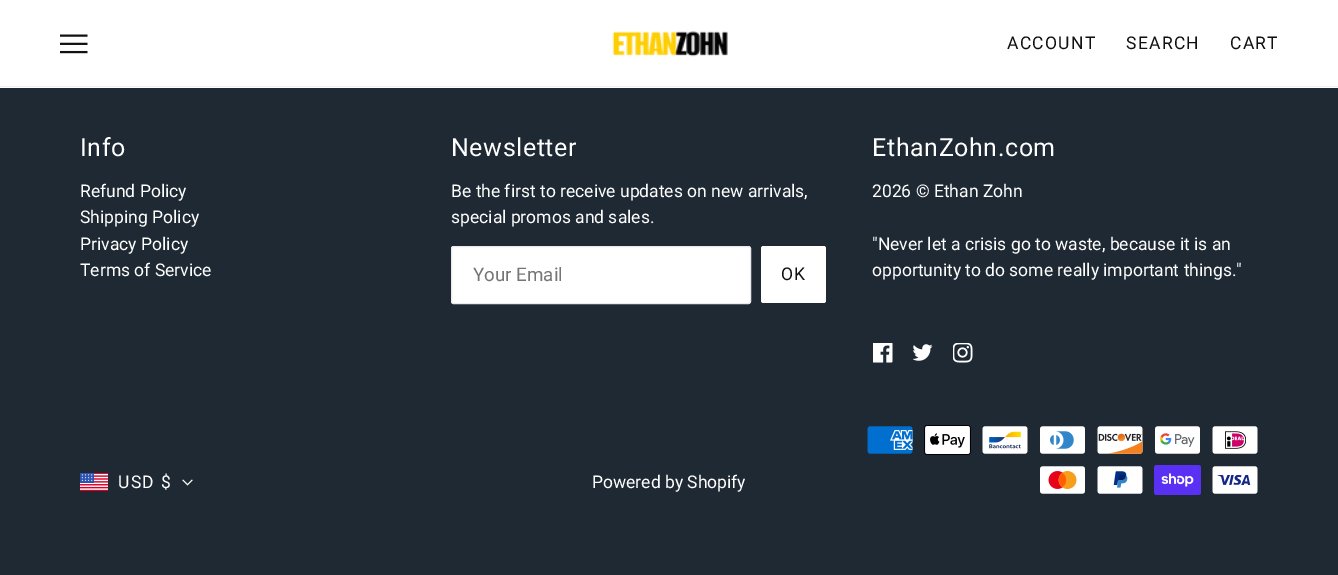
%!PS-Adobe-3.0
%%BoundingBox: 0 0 1338 575
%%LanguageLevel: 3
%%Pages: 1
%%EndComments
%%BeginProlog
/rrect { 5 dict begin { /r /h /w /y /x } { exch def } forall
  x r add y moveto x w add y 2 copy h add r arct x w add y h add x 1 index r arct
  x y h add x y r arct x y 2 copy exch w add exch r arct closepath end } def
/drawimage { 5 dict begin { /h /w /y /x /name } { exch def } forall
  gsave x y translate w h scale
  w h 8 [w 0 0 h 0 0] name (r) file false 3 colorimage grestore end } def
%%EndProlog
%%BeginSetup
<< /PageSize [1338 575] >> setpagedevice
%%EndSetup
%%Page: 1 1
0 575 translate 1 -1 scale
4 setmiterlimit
0.122 0.161 0.204 setrgbcolor
0 0 1338 575 rectfill
1 setgray
0 0 1338 88 rectfill
0.933 setgray
0 86 1338 1 rectfill
(images/1.raw) 60 34 28 20 drawimage
(images/2.raw) 612 31 116 26 drawimage
1 setgray
451.5 246.5 299 57 2 rrect gsave fill grestore
0.918 setgray
stroke
1 setgray
761 246 65 57 2.5 rrect fill
(images/3.raw) 873 343 20 20 drawimage
(images/4.raw) 913 344 20 17 drawimage
(images/5.raw) 953 343 20 20 drawimage
(images/6.raw) 80 473 29 18 drawimage
(images/7.raw) 182 479 11 7 drawimage
(images/8.raw) 867 426 46 28 drawimage
(images/9.raw) 924 425 47 30 drawimage
(images/10.raw) 982 426 46 28 drawimage
(images/11.raw) 1040 426 45 28 drawimage
(images/12.raw) 1097 426 46 28 drawimage
(images/13.raw) 1155 426 45 28 drawimage
(images/14.raw) 1212 426 46 28 drawimage
(images/15.raw) 1040 466 45 28 drawimage
(images/16.raw) 1097 466 46 28 drawimage
(images/17.raw) 1154 465 47 30 drawimage
(images/18.raw) 1212 466 46 28 drawimage
/Roboto-Regular [17.5 0 0 -17.5 0 0] selectfont
0.067 setgray
1007 49 moveto 1.25 0 (ACCOUNT) ashow
1126 49 moveto 1.25 0 (SEARCH) ashow
1230 49 moveto 1.25 0 (CART) ashow
/Roboto-Regular [25 0 0 -25 0 0] selectfont
1 setgray
80 156 moveto 0.6 0 (Info) ashow
/Roboto-Regular [17.5 0 0 -17.5 0 0] selectfont
80 197 moveto (Refund Policy) show
80 223 moveto (Shipping Policy) show
80 250 moveto (Privacy Policy) show
80 276 moveto (Terms of Service) show
/Roboto-Regular [25 0 0 -25 0 0] selectfont
451 156 moveto 0.6 0 (Newsletter) ashow
/Roboto-Regular [17.5 0 0 -17.5 0 0] selectfont
451 197 moveto (Be the first to receive updates on new arrivals,) show
451 223 moveto (special promos and sales.) show
/Roboto-Regular [18.75 0 0 -18.75 0 0] selectfont
0.459 setgray
473 281 moveto (Your Email) show
/Roboto-Regular [17.5 0 0 -17.5 0 0] selectfont
0.067 setgray
781 280 moveto 1.25 0 (OK) ashow
/Roboto-Regular [25 0 0 -25 0 0] selectfont
1 setgray
872 156 moveto 0.6 0 (EthanZohn.com) ashow
/Roboto-Regular [17.5 0 0 -17.5 0 0] selectfont
872 197 moveto (2026 © Ethan Zohn) show
872 250 moveto ("Never let a crisis go to waste, because it is an) show
872 276 moveto (opportunity to do some really important things.") show
118 488 moveto 1.25 0 (USD $) ashow
592 488 moveto (Powered by Shopify) show
showpage
%%EOF
